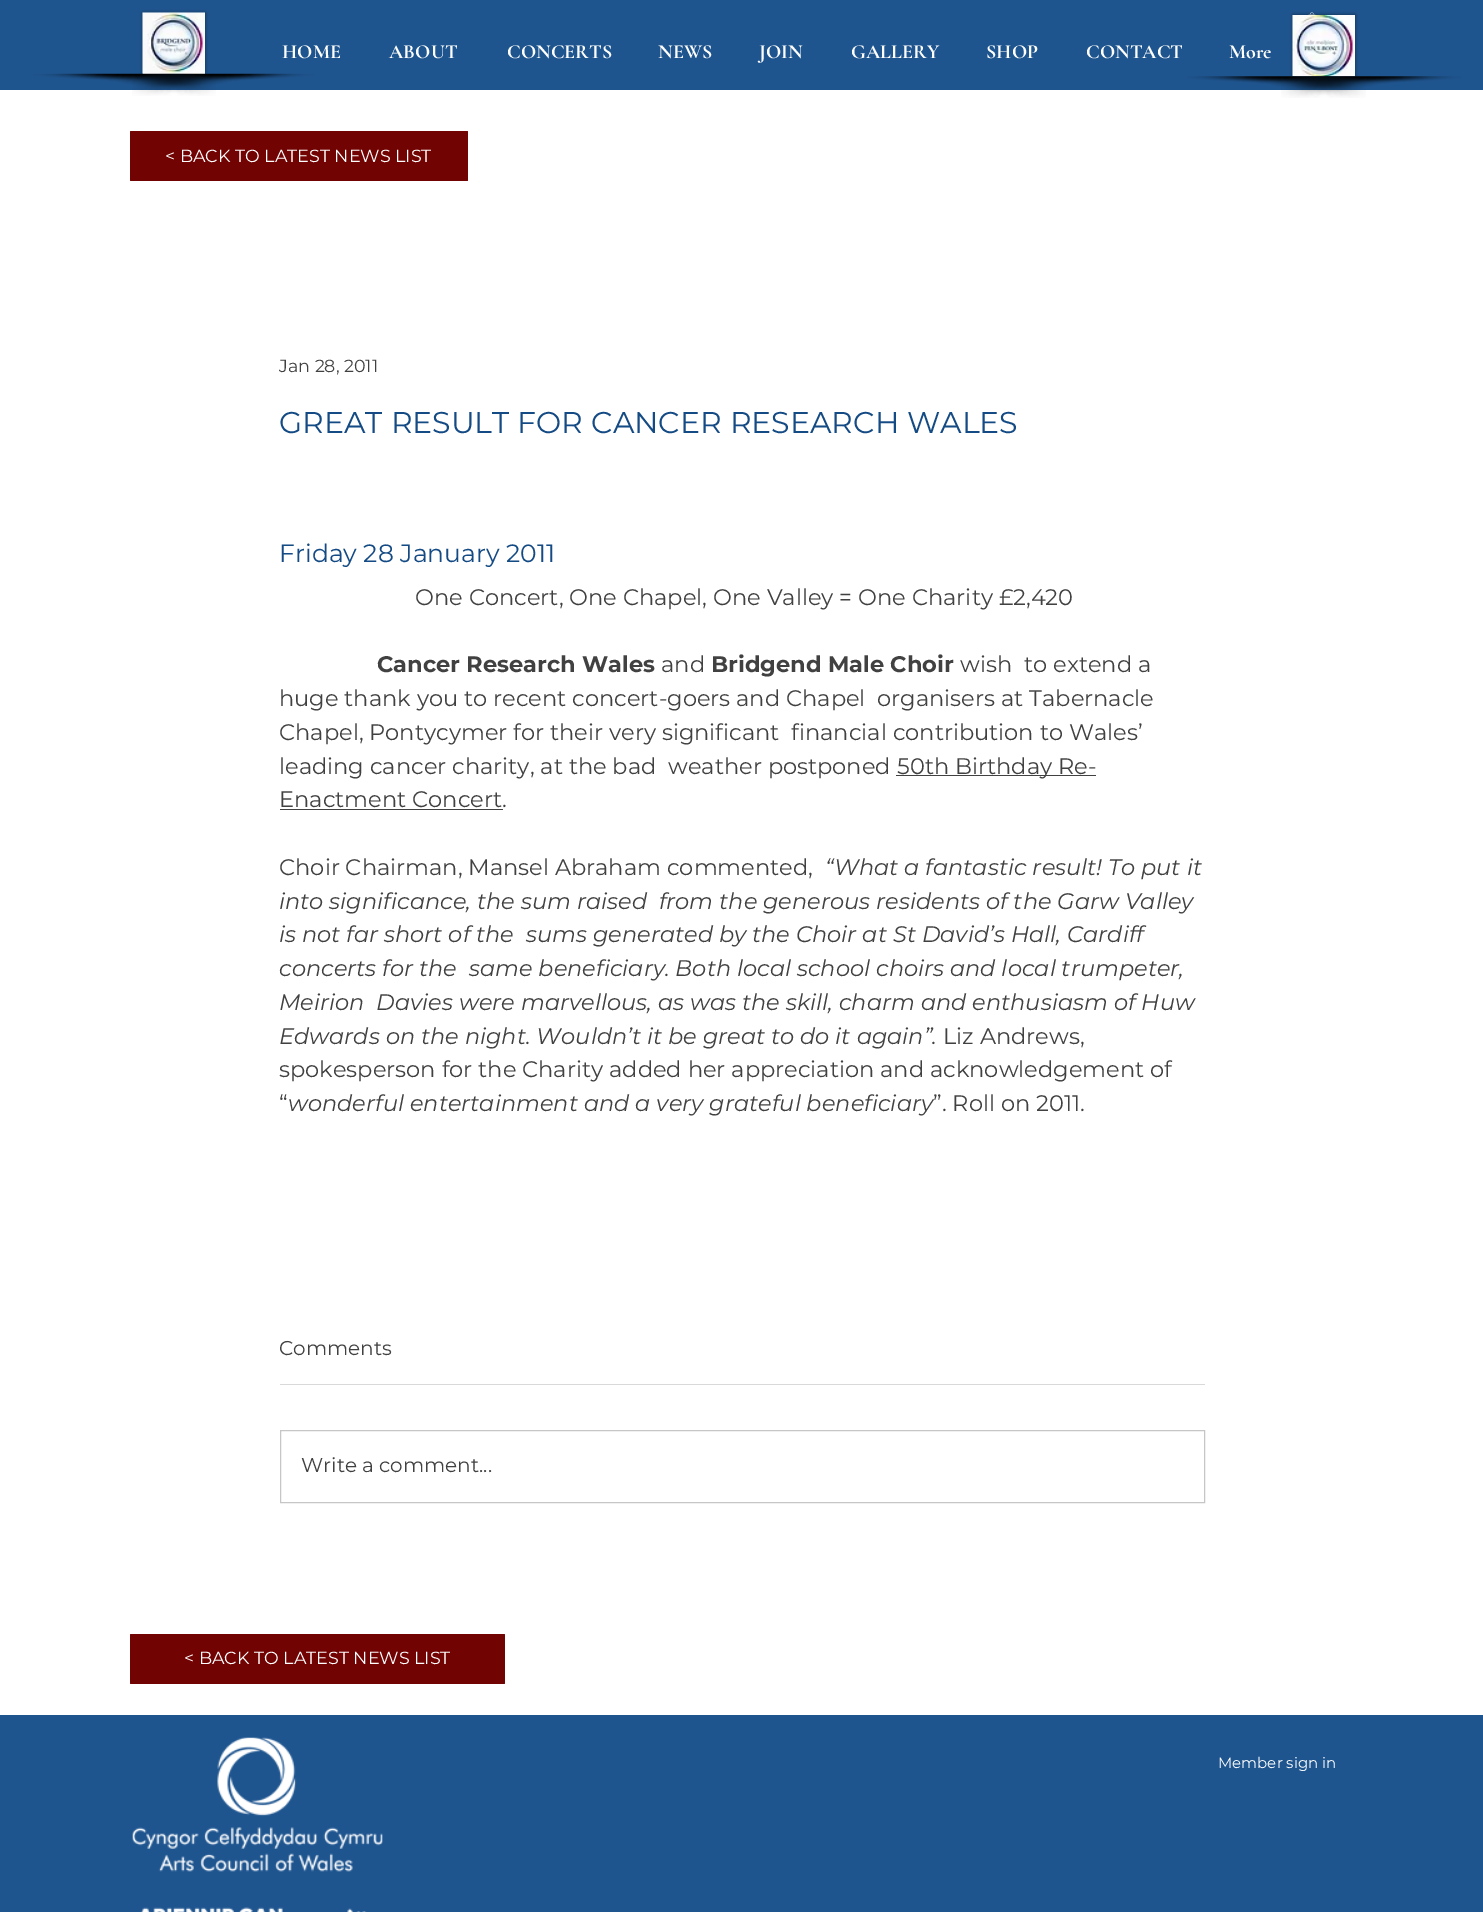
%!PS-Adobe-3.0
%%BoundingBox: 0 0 1483 1912
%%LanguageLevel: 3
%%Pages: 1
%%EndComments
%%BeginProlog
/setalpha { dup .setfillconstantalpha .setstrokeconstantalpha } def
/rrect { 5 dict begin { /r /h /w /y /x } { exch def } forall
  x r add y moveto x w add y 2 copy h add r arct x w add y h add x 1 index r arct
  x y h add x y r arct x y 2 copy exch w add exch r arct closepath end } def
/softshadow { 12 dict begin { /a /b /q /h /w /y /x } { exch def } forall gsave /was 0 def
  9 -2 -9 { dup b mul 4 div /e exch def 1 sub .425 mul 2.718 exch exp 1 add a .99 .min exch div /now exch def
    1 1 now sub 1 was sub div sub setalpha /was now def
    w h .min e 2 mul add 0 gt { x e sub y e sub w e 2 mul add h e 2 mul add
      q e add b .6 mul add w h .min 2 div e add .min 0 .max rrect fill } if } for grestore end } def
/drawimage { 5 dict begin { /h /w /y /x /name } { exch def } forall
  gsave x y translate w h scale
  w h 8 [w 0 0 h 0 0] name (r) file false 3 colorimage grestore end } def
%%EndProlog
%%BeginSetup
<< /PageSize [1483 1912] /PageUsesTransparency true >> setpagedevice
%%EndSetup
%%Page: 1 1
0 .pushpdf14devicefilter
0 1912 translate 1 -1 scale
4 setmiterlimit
1 setgray
0 0 1483 1912 rectfill
0.122 0.333 0.561 setrgbcolor
0 0 1483 90 rectfill
0 setgray
143 13 62 61 0 2 0.5 softshadow
(images/1.raw) 142 12 63 62 drawimage
(images/3.raw) 132 73 182 23 drawimage
(images/2.raw) 33 73 183 23 drawimage
(images/7.raw) 1308 12 8 3 drawimage
1293 15 62 61 0 2 0.5 softshadow
(images/4.raw) 1292 15 63 62 drawimage
(images/6.raw) 1282 76 179 22 drawimage
(images/5.raw) 1187 76 179 22 drawimage
0.447 0.012 0.012 setrgbcolor
130 131 338 50 1 rrect fill
0.255 setgray
896 775 200 1 rectfill
280 809 223 1 rectfill
0.851 setgray
280 1384 925 1 rectfill
0.776 setgray
280.5 1430.5 924 72 rectstroke
0.447 0.012 0.012 setrgbcolor
130 1634 375 50 1 rrect fill
0.122 0.333 0.561 setrgbcolor
0 1715 1483 197 rectfill
(images/8.raw) 132 1737 251 175 drawimage
/CormorantGaramond-Bold [20 0 0 -20 0 0] selectfont
1 setgray
282 58 moveto (HOME) show
389 58 moveto (ABOUT) show
507 58 moveto (CONCERTS) show
658 58 moveto (NEWS) show
759 58 moveto (JOIN) show
851 58 moveto (GALLERY) show
986 58 moveto (SHOP) show
1086 58 moveto (CONTACT) show
1229 58 moveto (More) show
/Montserrat-Regular [17.5 0 0 -17.5 0 0] selectfont
165 162 moveto (< BACK TO LATEST NEWS LIST) show
0.255 setgray
279 372 moveto (Jan 28, 2011) show
/Montserrat-Regular [30 0 0 -30 0 0] selectfont
0.082 0.294 0.518 setrgbcolor
279 433 moveto (GREAT RESULT FOR CANCER RESEARCH WALES) show
/Montserrat-Regular [25 0 0 -25 0 0] selectfont
279 562 moveto (Friday 28 January 2011) show
/Montserrat-Regular [22.5 0 0 -22.5 0 0] selectfont
0.255 setgray
415 605 moveto (One Concert, One Chapel, One Valley = One Charity £2,420) show
/Montserrat-Bold [22.5 0 0 -22.5 0 0] selectfont
377 672 moveto (Cancer Research Wales) show
/Montserrat-Regular [22.5 0 0 -22.5 0 0] selectfont
661 672 moveto (and) show
/Montserrat-Bold [22.5 0 0 -22.5 0 0] selectfont
711 672 moveto (Bridgend Male Choir) show
/Montserrat-Regular [22.5 0 0 -22.5 0 0] selectfont
960 672 moveto (wish  to extend a) show
279 706 moveto (huge thank you to recent concert-goers and Chapel  organisers at Tabernacle) show
279 740 moveto (Chapel, Pontycymer for their very significant  financial contribution to Wales’) show
279 774 moveto (leading cancer charity, at the bad  weather postponed) show
897 774 moveto (50th Birthday Re-) show
279 807 moveto (Enactment Concert.) show
279 875 moveto (Choir Chairman, Mansel Abraham commented,) show
/Montserrat-Italic [22.5 0 0 -22.5 0 0] selectfont
825 875 moveto (“What a fantastic result! To put it) show
279 909 moveto (into significance, the sum raised  from the generous residents of the Garw Valley) show
279 942 moveto (is not far short of the  sums generated by the Choir at St David’s Hall, Cardiff) show
279 976 moveto (concerts for the  same beneficiary. Both local school choirs and local trumpeter,) show
279 1010 moveto (Meirion  Davies were marvellous, as was the skill, charm and enthusiasm of Huw) show
279 1044 moveto (Edwards on the night. Wouldn’t it be great to do it again”.) show
/Montserrat-Regular [22.5 0 0 -22.5 0 0] selectfont
943 1044 moveto (Liz Andrews,) show
279 1077 moveto (spokesperson for the Charity added her appreciation and acknowledgement of) show
279 1111 moveto (“) show
/Montserrat-Italic [22.5 0 0 -22.5 0 0] selectfont
288 1111 moveto (wonderful entertainment and a very grateful beneficiary) show
/Montserrat-Regular [22.5 0 0 -22.5 0 0] selectfont
933 1111 moveto (”. Roll on 2011.) show
/Montserrat-Regular [20 0 0 -20 0 0] selectfont
279 1355 moveto (Comments) show
301 1472 moveto (Write a comment...) show
/Montserrat-Regular [17.5 0 0 -17.5 0 0] selectfont
1 setgray
184 1664 moveto (< BACK TO LATEST NEWS LIST) show
/Montserrat-Regular [15 0 0 -15 0 0] selectfont
1218 1768 moveto (Member sign in) show
.poppdf14devicefilter showpage
%%EOF
